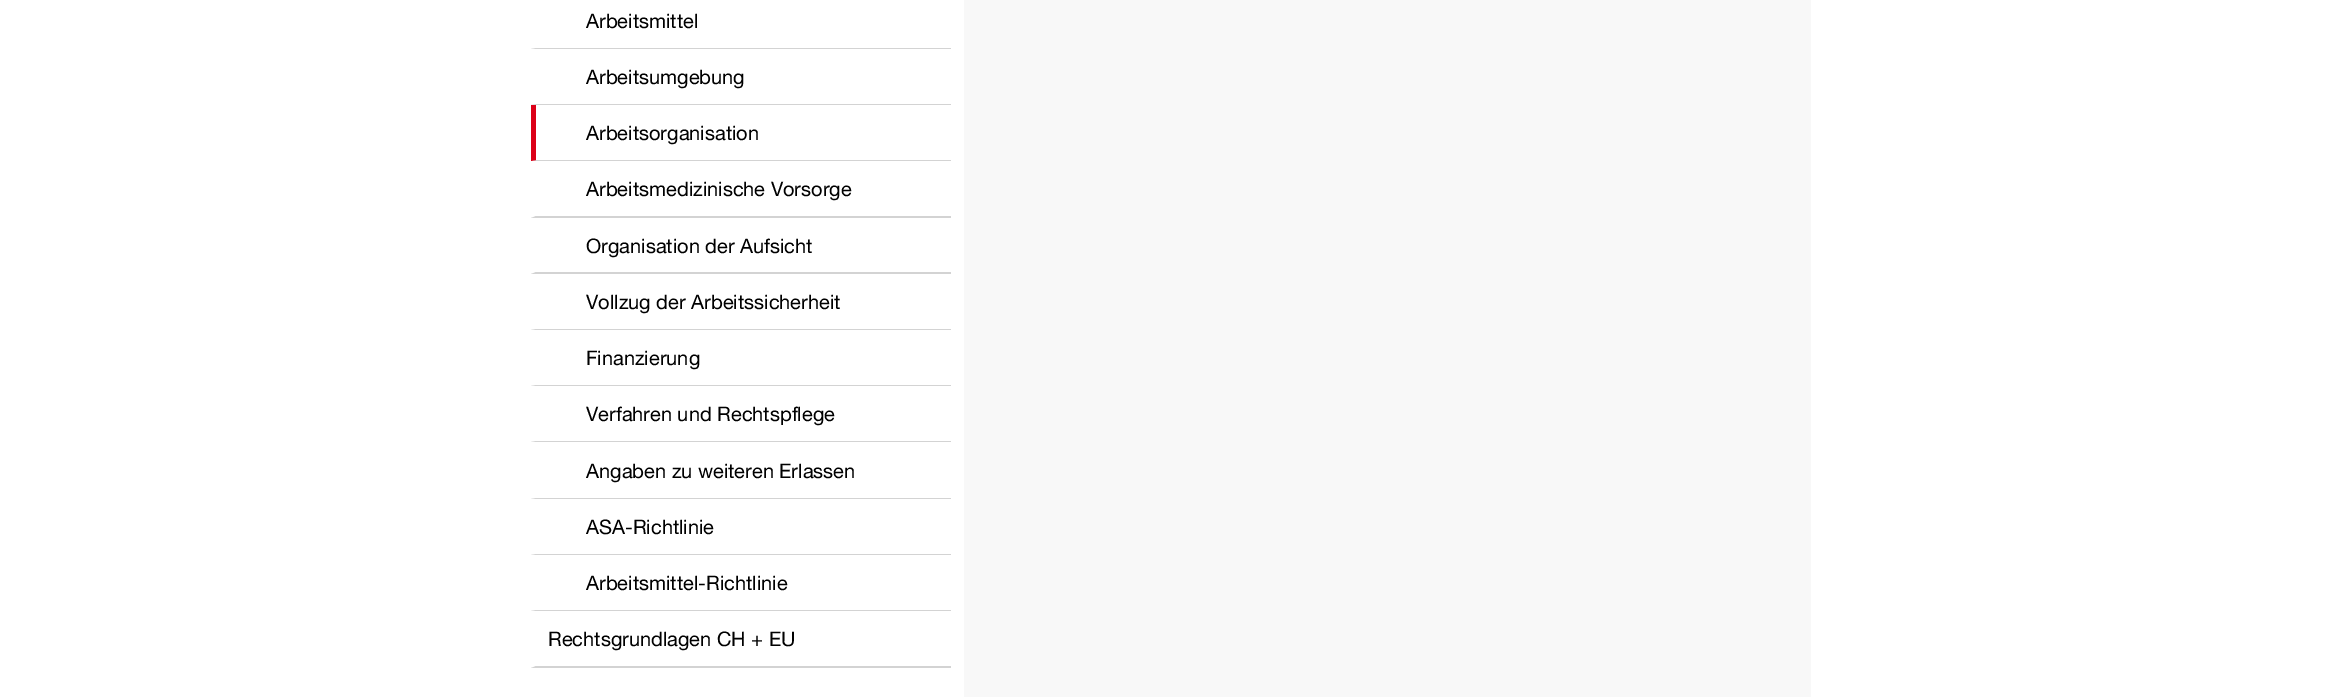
%!PS-Adobe-3.0
%%BoundingBox: 0 0 2341 697
%%LanguageLevel: 3
%%Pages: 1
%%EndComments
%%BeginProlog
%%EndProlog
%%BeginSetup
<< /PageSize [2341 697] >> setpagedevice
%%EndSetup
%%Page: 1 1
0 697 translate 1 -1 scale
4 setmiterlimit
1 setgray
0 0 2341 697 rectfill
0.827 setgray
newpath 951 49 moveto 531 49 lineto 536 48 lineto 951 48 lineto closepath fill
newpath 951 105 moveto 531 105 lineto 536 104 lineto 951 104 lineto closepath fill
newpath 951 161 moveto 531 161 lineto 536 160 lineto 951 160 lineto closepath fill
0.863 0 0.094 setrgbcolor
newpath 531 161 moveto 531 105 lineto 536 105 lineto 536 160 lineto closepath fill
0.827 setgray
newpath 951 218 moveto 531 218 lineto 536 216 lineto 951 216 lineto closepath fill
newpath 951 274 moveto 531 274 lineto 536 272 lineto 951 272 lineto closepath fill
newpath 951 330 moveto 531 330 lineto 536 329 lineto 951 329 lineto closepath fill
newpath 951 386 moveto 531 386 lineto 536 385 lineto 951 385 lineto closepath fill
newpath 951 442 moveto 531 442 lineto 536 441 lineto 951 441 lineto closepath fill
newpath 951 499 moveto 531 499 lineto 536 498 lineto 951 498 lineto closepath fill
newpath 951 555 moveto 531 555 lineto 536 554 lineto 951 554 lineto closepath fill
newpath 951 611 moveto 531 611 lineto 536 610 lineto 951 610 lineto closepath fill
newpath 951 668 moveto 531 668 lineto 536 666 lineto 951 666 lineto closepath fill
0.973 setgray
964 0 847 697 rectfill
/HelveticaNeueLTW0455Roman-Regular [20 0 0 -20 0 0] selectfont
0 setgray
586 28 moveto (Arbeitsmittel) show
586 84 moveto (Arbeitsumgebung) show
586 140 moveto (Arbeitsorganisation) show
586 196 moveto (Arbeitsmedizinische Vorsorge) show
586 253 moveto (Organisation der Aufsicht) show
586 309 moveto (Vollzug der Arbeitssicherheit) show
586 365 moveto (Finanzierung) show
586 421 moveto (Verfahren und Rechtspflege) show
586 478 moveto (Angaben zu weiteren Erlassen) show
586 534 moveto (ASA-Richtlinie) show
586 590 moveto (Arbeitsmittel-Richtlinie) show
548 646 moveto (Rechtsgrundlagen CH + EU) show
showpage
%%EOF
